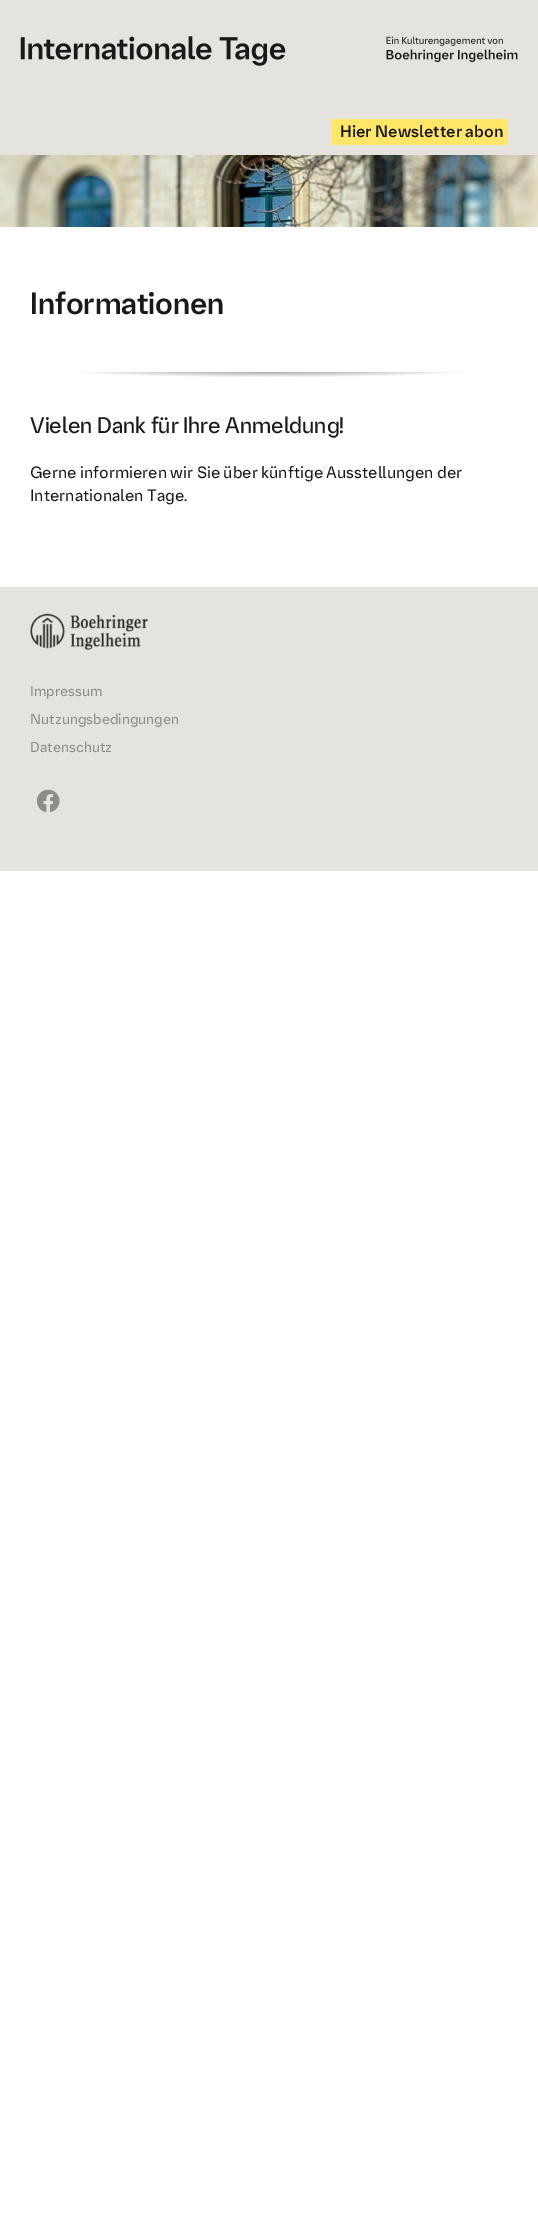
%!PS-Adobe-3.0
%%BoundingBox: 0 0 538 2226
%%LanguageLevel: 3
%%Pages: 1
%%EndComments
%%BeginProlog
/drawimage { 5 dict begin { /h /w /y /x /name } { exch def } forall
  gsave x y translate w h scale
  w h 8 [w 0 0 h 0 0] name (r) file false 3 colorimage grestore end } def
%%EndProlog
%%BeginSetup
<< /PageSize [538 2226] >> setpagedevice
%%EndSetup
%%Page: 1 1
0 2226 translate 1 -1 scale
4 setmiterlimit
1 setgray
0 0 538 2226 rectfill
0.898 0.89 0.871 setrgbcolor
0 0 538 119 rectfill
(images/1.raw) 20 36 266 30 drawimage
(images/2.raw) 386 36 132 26 drawimage
0 119 538 36 rectfill
1 0.902 0.404 setrgbcolor
332 119 176 26 rectfill
(images/3.raw) 0 155 538 72 drawimage
gsave newpath 74 372 moveto 464 372 lineto 464 377 lineto 74 377 lineto closepath clip newpath 269 369 translate 338 13 scale
<< /ShadingType 3 /ColorSpace /DeviceRGB /Coords [0 0 0 0 0 1] /Extend [true true] /Function << /FunctionType 3 /Domain [0 1] /Functions [<< /FunctionType 2 /Domain [0 1] /C0 [0.502 0.502 0.502] /C1 [1 1 1] /N 1 >> << /FunctionType 2 /Domain [0 1] /C0 [1 1 1] /C1 [1 1 1] /N 1 >>] /Bounds [0.65] /Encode [0 1 0 1] >> >> shfill grestore
0.898 0.89 0.871 setrgbcolor
0 587 538 284 rectfill
(images/4.raw) 30 613 118 37 drawimage
(images/5.raw) 36 789 24 23 drawimage
/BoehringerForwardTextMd-Medium [16 0 0 -16 0 0] selectfont
0.098 setgray
340 137 moveto (Hier Newsletter abon) show
/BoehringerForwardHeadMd-Medium [30 0 0 -30 0 0] selectfont
30 314 moveto (Informationen) show
/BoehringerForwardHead-Regular [22 0 0 -22 0 0] selectfont
30 433 moveto (Vielen Dank für Ihre Anmeldung!) show
/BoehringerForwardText-Regular [16 0 0 -16 0 0] selectfont
30 478 moveto (Gerne informieren wir Sie über künftige Ausstellungen der) show
30 501 moveto (Internationalen Tage.) show
/BoehringerForwardText-Regular [14 0 0 -14 0 0] selectfont
0.553 0.549 0.537 setrgbcolor
30 696 moveto (Impressum) show
30 724 moveto (Nutzungsbedingungen) show
30 752 moveto (Datenschutz) show
showpage
%%EOF
